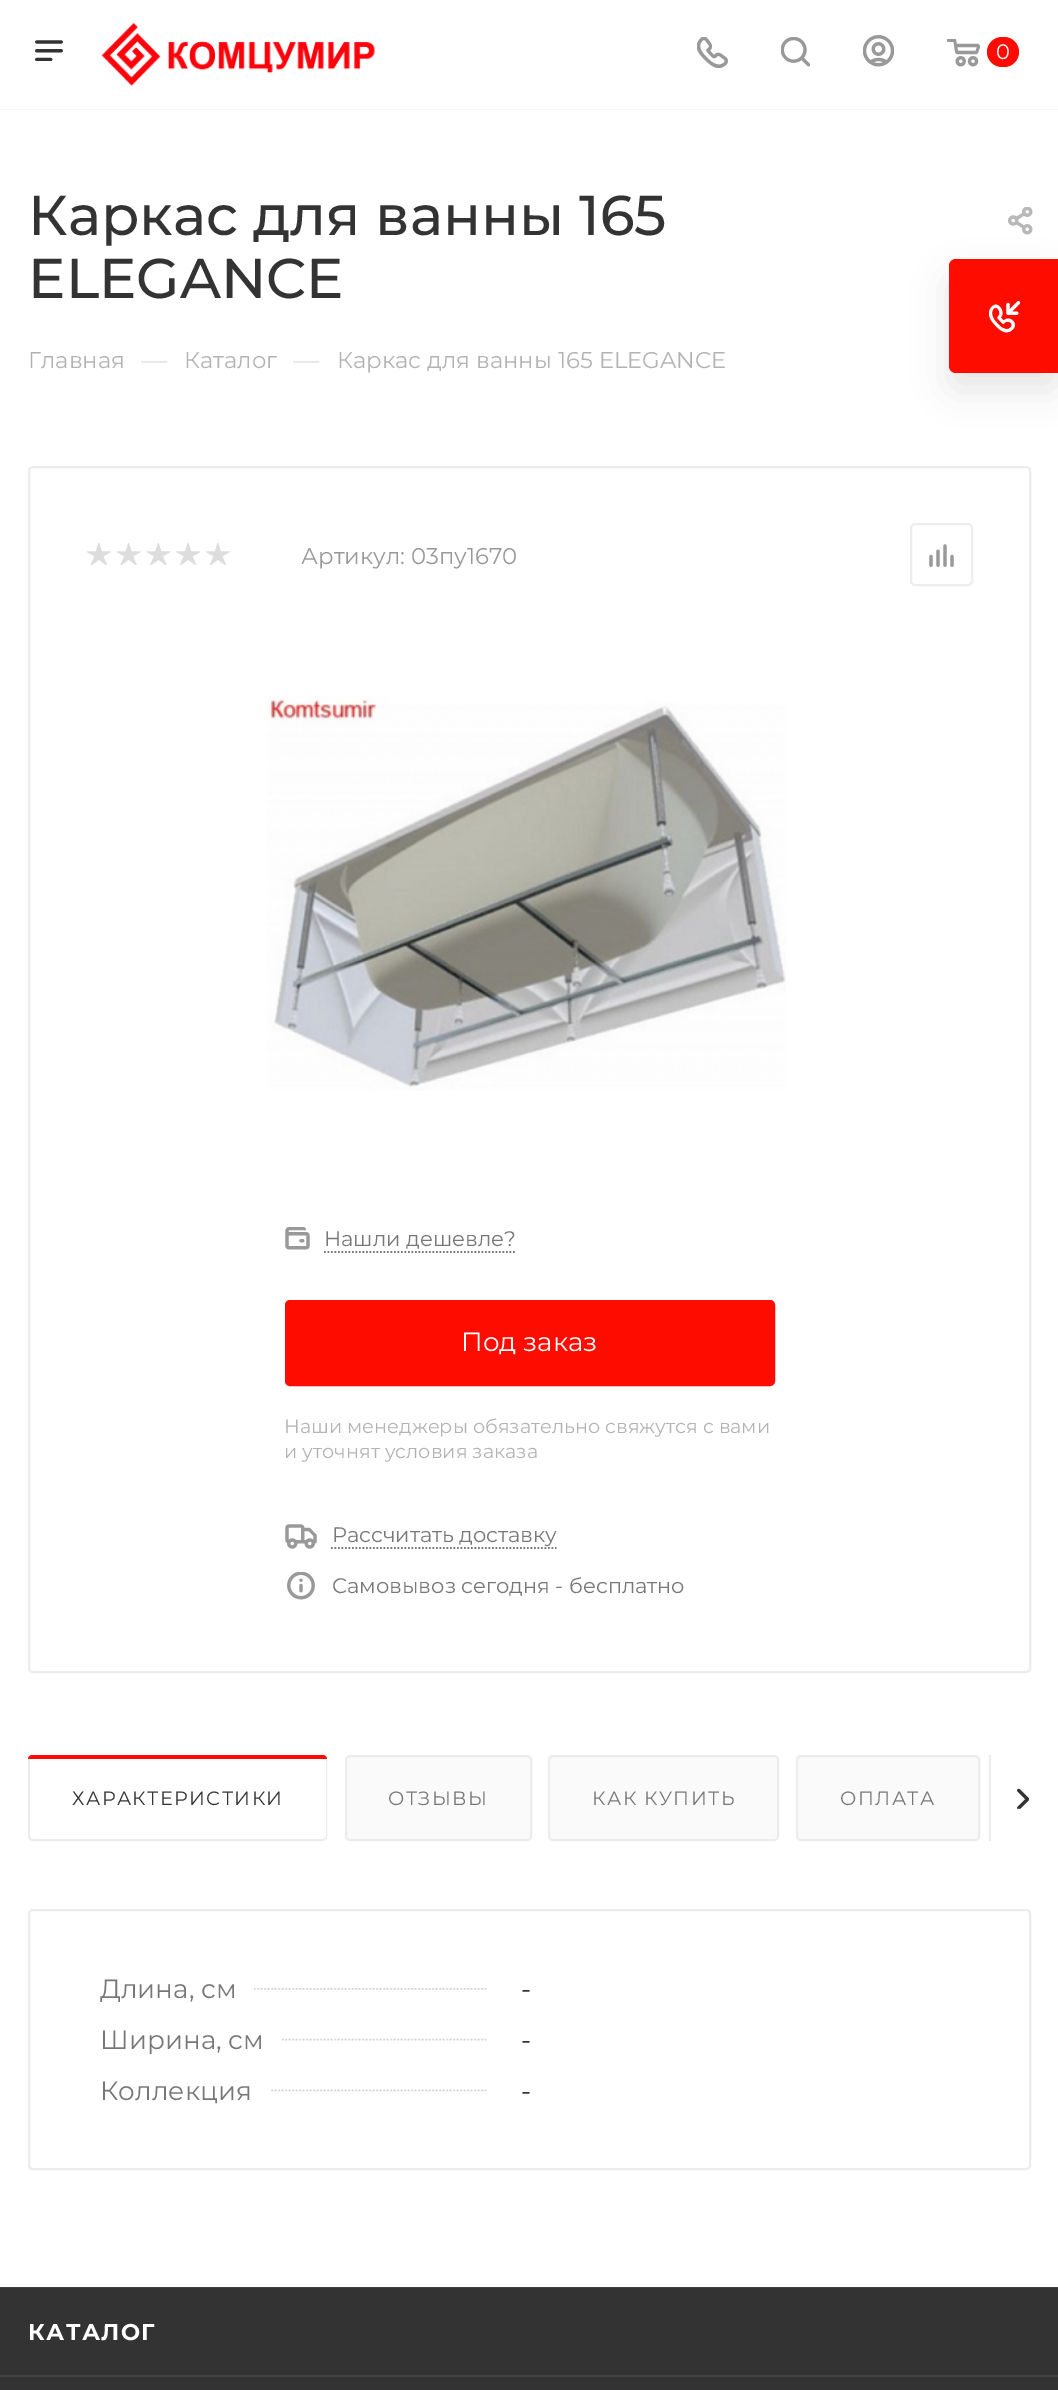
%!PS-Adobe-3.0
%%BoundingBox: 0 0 1058 2390
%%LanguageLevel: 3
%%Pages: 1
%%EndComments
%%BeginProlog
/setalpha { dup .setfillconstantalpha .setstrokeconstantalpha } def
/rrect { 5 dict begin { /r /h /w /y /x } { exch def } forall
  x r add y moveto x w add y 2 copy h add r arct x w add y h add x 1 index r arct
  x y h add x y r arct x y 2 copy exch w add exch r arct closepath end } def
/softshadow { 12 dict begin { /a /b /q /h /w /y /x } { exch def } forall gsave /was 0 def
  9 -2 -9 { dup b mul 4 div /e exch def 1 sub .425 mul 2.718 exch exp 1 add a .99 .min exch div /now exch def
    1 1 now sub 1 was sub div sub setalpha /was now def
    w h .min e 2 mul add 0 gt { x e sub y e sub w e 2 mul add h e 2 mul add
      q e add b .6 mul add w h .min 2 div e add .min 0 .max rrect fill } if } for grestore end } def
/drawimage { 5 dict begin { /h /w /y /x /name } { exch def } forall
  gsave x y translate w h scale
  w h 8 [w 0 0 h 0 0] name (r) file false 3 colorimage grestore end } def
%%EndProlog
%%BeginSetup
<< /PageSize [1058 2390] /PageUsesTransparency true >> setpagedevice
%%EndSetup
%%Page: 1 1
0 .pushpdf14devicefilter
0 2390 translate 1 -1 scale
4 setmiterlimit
1 setgray
0 0 1058 2390 rectfill
0.961 setgray
0 109 1058 1 rectfill
(images/1.raw) 35 40 28 21 drawimage
(images/2.raw) 101 22 274 64 drawimage
(images/3.raw) 697 37 31 31 drawimage
(images/4.raw) 781 37 29 30 drawimage
(images/5.raw) 863 35 31 32 drawimage
(images/6.raw) 947 39 33 28 drawimage
1 0.047 0 setrgbcolor
987 37 32 30 15 rrect fill
(images/7.raw) 1008 207 25 28 drawimage
0.925 setgray
2 setlinewidth
29 467 1001 1205 4 rrect stroke
(images/8.raw) 87 543 24 22 drawimage
(images/9.raw) 116 543 25 22 drawimage
(images/10.raw) 146 543 25 22 drawimage
(images/11.raw) 176 543 24 22 drawimage
(images/8.raw) 206 543 24 22 drawimage
0.933 setgray
911 524 61 61 4 rrect stroke
(images/12.raw) 929 544 25 23 drawimage
(images/13.raw) 267 695 519 396 drawimage
(images/14.raw) 285 1227 25 23 drawimage
0.467 setgray
1.8 setlinewidth
[1.75 1.75] 0 setdash
newpath 324 1252 moveto 516 1252 lineto stroke
1 0.047 0 setrgbcolor
286 1301 488 84 4 rrect gsave fill grestore
2 setlinewidth
[] 0 setdash
stroke
(images/15.raw) 285 1524 32 25 drawimage
0.467 setgray
1.8 setlinewidth
[1.75 1.75] 0 setdash
newpath 331 1548 moveto 556.5 1548 lineto stroke
(images/16.raw) 287 1572 28 28 drawimage
0.98 setgray
29 1756 297 84 4 rrect gsave fill grestore
0.925 setgray
2 setlinewidth
[] 0 setdash
stroke
1 setgray
30 1757 296 82 5 rrect fill
1 0.047 0 setrgbcolor
newpath 32 1755 moveto 323 1755 lineto 325 1755 327 1757 327 1759 curveto 28 1759 lineto 28 1757 30 1755 32 1755 curveto closepath fill
0.98 setgray
346 1756 185 84 4 rrect gsave fill grestore
0.925 setgray
stroke
0.98 setgray
549 1756 229 84 4 rrect gsave fill grestore
0.925 setgray
stroke
0.98 setgray
797 1756 182 84 4 rrect gsave fill grestore
0.925 setgray
stroke
989 1755 2 86 rectfill
(images/17.raw) 1017 1788 12 21 drawimage
29 1910 1001 259 4 rrect stroke
(images/18.raw) 254 1988 233 2 drawimage
(images/19.raw) 282 2038 205 3 drawimage
(images/20.raw) 270 2089 217 3 drawimage
0 setgray
949 277 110 113 7 17.5 0.1 softshadow
1 0.047 0 setrgbcolor
newpath 956 259 moveto 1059 259 lineto 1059 373 lineto 956 373 lineto 952 373 949 370 949 366 curveto 949 266 lineto 949 262 952 259 956 259 curveto closepath fill
(images/21.raw) 989 301 31 32 drawimage
0.2 setgray
0 2288 1058 102 rectfill
0.263 setgray
0 2287 1058 1 rectfill
0 2375 1058 2 rectfill
/Montserrat-Regular [21 0 0 -21 0 0] selectfont
1 setgray
996 59 moveto (0) show
/Montserrat-Medium [56 0 0 -56 0 0] selectfont
0.2 setgray
28 235 moveto (Каркас для ванны 165) show
28 298 moveto (ELEGANCE) show
/Montserrat-Regular [22.75 0 0 -22.75 0 0] selectfont
0.702 setgray
28 368 moveto (Главная) show
/Montserrat-Regular [26.25 0 0 -26.25 0 0] selectfont
0.867 setgray
141 369 moveto (—) show
/Montserrat-Regular [22.75 0 0 -22.75 0 0] selectfont
0.702 setgray
184 368 moveto (Каталог) show
/Montserrat-Regular [26.25 0 0 -26.25 0 0] selectfont
0.867 setgray
293 369 moveto (—) show
/Montserrat-Regular [22.75 0 0 -22.75 0 0] selectfont
0.702 setgray
337 368 moveto (Каркас для ванны 165 ELEGANCE) show
0.6 setgray
301 564 moveto (Артикул: 03пу1670) show
/Montserrat-Regular [21 0 0 -21 0 0] selectfont
0.467 setgray
324 1246 moveto (Нашли дешевле?) show
/Montserrat-Regular [26.25 0 0 -26.25 0 0] selectfont
1 setgray
461 1351 moveto (Под заказ) show
/Montserrat-Regular [19.25 0 0 -19.25 0 0] selectfont
0.702 setgray
284 1433 moveto (Наши менеджеры обязательно свяжутся с вами) show
284 1458 moveto (и уточнят условия заказа) show
/Montserrat-Regular [21 0 0 -21 0 0] selectfont
0.467 setgray
332 1542 moveto (Рассчитать доставку) show
332 1593 moveto (Самовывоз сегодня - бесплатно) show
/Montserrat-Regular [19.25 0 0 -19.25 0 0] selectfont
0.2 setgray
72 1805 moveto 1.4 0 (ХАРАКТЕРИСТИКИ) ashow
0.467 setgray
388 1805 moveto 1.4 0 (ОТЗЫВЫ) ashow
592 1805 moveto 1.4 0 (КАК КУПИТЬ) ashow
840 1805 moveto 1.4 0 (ОПЛАТА) ashow
/Montserrat-Regular [26.25 0 0 -26.25 0 0] selectfont
100 1998 moveto (Длина, см) show
0.2 setgray
521 1998 moveto (-) show
0.467 setgray
100 2049 moveto (Ширина, см) show
0.2 setgray
521 2049 moveto (-) show
0.467 setgray
100 2100 moveto (Коллекция) show
0.2 setgray
521 2100 moveto (-) show
/Montserrat-Bold [22.75 0 0 -22.75 0 0] selectfont
1 setgray
28 2340 moveto 1.4 0 (КАТАЛОГ) ashow
.poppdf14devicefilter showpage
%%EOF
